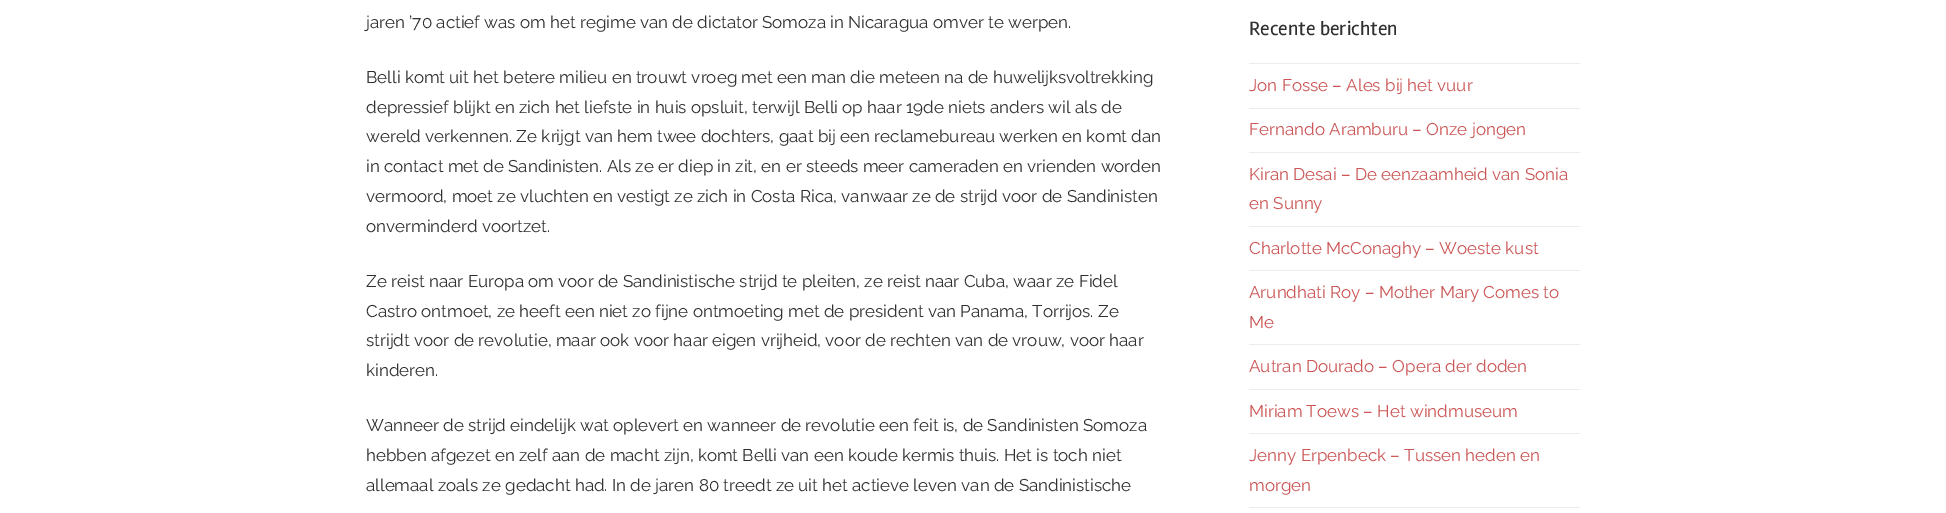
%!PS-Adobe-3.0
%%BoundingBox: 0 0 1946 513
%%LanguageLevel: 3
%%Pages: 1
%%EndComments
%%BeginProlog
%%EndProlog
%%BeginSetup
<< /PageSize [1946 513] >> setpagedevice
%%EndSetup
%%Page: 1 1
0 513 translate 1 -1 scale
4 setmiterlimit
1 setgray
0 0 1946 513 rectfill
0.925 setgray
1249 63 331 1 rectfill
1249 108 331 1 rectfill
1249 152 331 1 rectfill
1249 226 331 1 rectfill
1249 270 331 1 rectfill
1249 344 331 1 rectfill
1249 389 331 1 rectfill
1249 433 331 1 rectfill
1249 507 331 1 rectfill
/Raleway-Regular [17 0 0 -17 0 0] selectfont
0.188 setgray
366 28 moveto (jaren ’70 actief was om het regime van de dictator Somoza in Nicaragua omver te werpen.) show
366 83 moveto (Belli komt uit het betere milieu en trouwt vroeg met een man die meteen na de huwelijksvoltrekking) show
366 113 moveto (depressief blijkt en zich het liefste in huis opsluit, terwijl Belli op haar 19de niets anders wil als de) show
366 142 moveto (wereld verkennen. Ze krijgt van hem twee dochters, gaat bij een reclamebureau werken en komt dan) show
366 172 moveto (in contact met de Sandinisten. Als ze er diep in zit, en er steeds meer cameraden en vrienden worden) show
366 202 moveto (vermoord, moet ze vluchten en vestigt ze zich in Costa Rica, vanwaar ze de strijd voor de Sandinisten) show
366 232 moveto (onverminderd voortzet.) show
366 287 moveto (Ze reist naar Europa om voor de Sandinistische strijd te pleiten, ze reist naar Cuba, waar ze Fidel) show
366 317 moveto (Castro ontmoet, ze heeft een niet zo fijne ontmoeting met de president van Panama, Torrijos. Ze) show
366 346 moveto (strijdt voor de revolutie, maar ook voor haar eigen vrijheid, voor de rechten van de vrouw, voor haar) show
366 376 moveto (kinderen.) show
366 431 moveto (Wanneer de strijd eindelijk wat oplevert en wanneer de revolutie een feit is, de Sandinisten Somoza) show
366 461 moveto (hebben afgezet en zelf aan de macht zijn, komt Belli van een koude kermis thuis. Het is toch niet) show
366 491 moveto (allemaal zoals ze gedacht had. In de jaren 80 treedt ze uit het actieve leven van de Sandinistische) show
/Rambla-Regular [20 0 0 -20 0 0] selectfont
1249 35 moveto (Recente berichten) show
/Raleway-Regular [17 0 0 -17 0 0] selectfont
0.8 0.333 0.333 setrgbcolor
1249 91 moveto (Jon Fosse – Ales bij het vuur) show
1249 135 moveto (Fernando Aramburu – Onze jongen) show
1249 180 moveto (Kiran Desai – De eenzaamheid van Sonia) show
1249 209 moveto (en Sunny) show
1249 254 moveto (Charlotte McConaghy – Woeste kust) show
1249 298 moveto (Arundhati Roy – Mother Mary Comes to) show
1249 328 moveto (Me) show
1249 372 moveto (Autran Dourado – Opera der doden) show
1249 417 moveto (Miriam Toews – Het windmuseum) show
1249 461 moveto (Jenny Erpenbeck – Tussen heden en) show
1249 491 moveto (morgen) show
showpage
%%EOF
